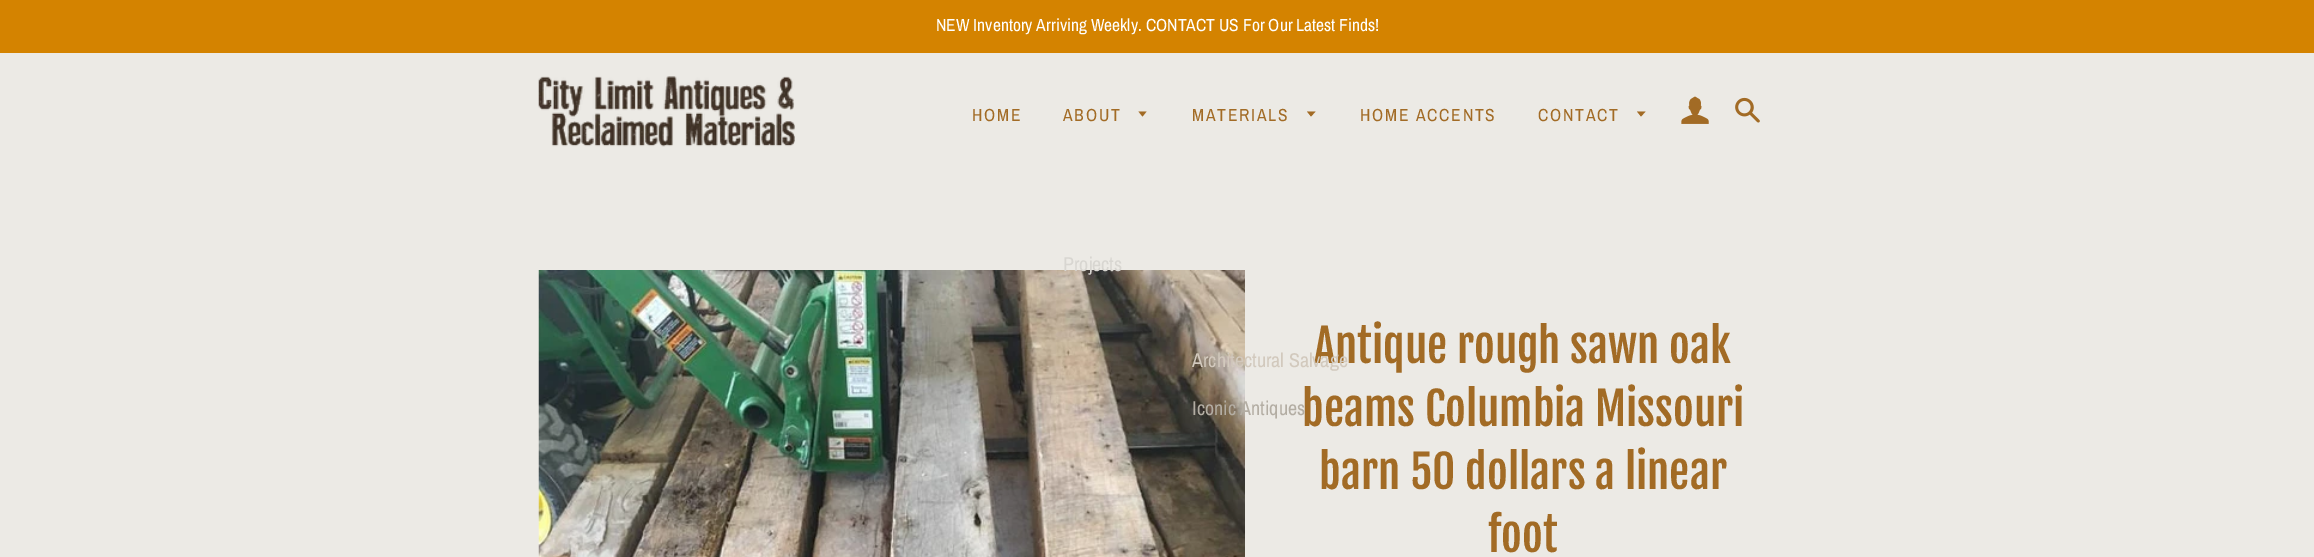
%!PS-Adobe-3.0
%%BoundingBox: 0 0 2314 557
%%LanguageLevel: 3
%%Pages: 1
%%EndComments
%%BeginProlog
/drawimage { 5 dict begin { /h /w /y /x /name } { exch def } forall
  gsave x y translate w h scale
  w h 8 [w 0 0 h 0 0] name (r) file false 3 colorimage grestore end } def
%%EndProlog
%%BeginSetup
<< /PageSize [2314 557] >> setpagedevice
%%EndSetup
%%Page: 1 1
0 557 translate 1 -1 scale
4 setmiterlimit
0.925 0.918 0.898 setrgbcolor
0 0 2314 557 rectfill
0.831 0.514 0 setrgbcolor
0 0 2314 53 rectfill
(images/1.raw) 538 76 257 71 drawimage
0.635 0.42 0.145 setrgbcolor
newpath 1138.5 111.5 moveto 1142.5 116.5 lineto 1146.5 111.5 lineto closepath fill
newpath 1307 111.5 moveto 1311 116.5 lineto 1315.5 111.5 lineto closepath fill
newpath 1637 111.5 moveto 1641 116.5 lineto 1645.5 111.5 lineto closepath fill
(images/2.raw) 1681 96 28 28 drawimage
(images/3.raw) 1735 97 25 26 drawimage
(images/4.raw) 538 270 707 287 drawimage
/ArchivoNarrow-Regular [17.5 0 0 -17.5 0 0] selectfont
1 setgray
936 31 moveto (NEW Inventory Arriving Weekly. CONTACT US For Our Latest Finds!) show
0.635 0.42 0.145 setrgbcolor
972 121 moveto 1.75 0 (HOME) ashow
1063 121 moveto 1.75 0 (ABOUT) ashow
/ArchivoNarrow-Regular [20 0 0 -20 0 0] selectfont
0.847 0.839 0.82 setrgbcolor
1063 271 moveto (Projects) show
/ArchivoNarrow-Regular [17.5 0 0 -17.5 0 0] selectfont
0.635 0.42 0.145 setrgbcolor
1192 121 moveto 1.75 0 (MATERIALS) ashow
1360 121 moveto 1.75 0 (HOME ACCENTS) ashow
1538 121 moveto 1.75 0 (CONTACT) ashow
/FjallaOne-Regular [45 0 0 -45 0 0] selectfont
1314 363 moveto (Antique rough sawn oak) show
/ArchivoNarrow-Regular [20 0 0 -20 0 0] selectfont
0.824 0.788 0.741 setrgbcolor
1192 367 moveto (Architectural Salvage) show
/FjallaOne-Regular [45 0 0 -45 0 0] selectfont
0.635 0.42 0.145 setrgbcolor
1302 426 moveto (beams Columbia Missouri) show
/ArchivoNarrow-Regular [20 0 0 -20 0 0] selectfont
0.702 0.678 0.639 setrgbcolor
1192 415 moveto (Iconic Antiques) show
/FjallaOne-Regular [45 0 0 -45 0 0] selectfont
0.635 0.42 0.145 setrgbcolor
1319 489 moveto (barn 50 dollars a linear) show
1488 552 moveto (foot) show
showpage
%%EOF
